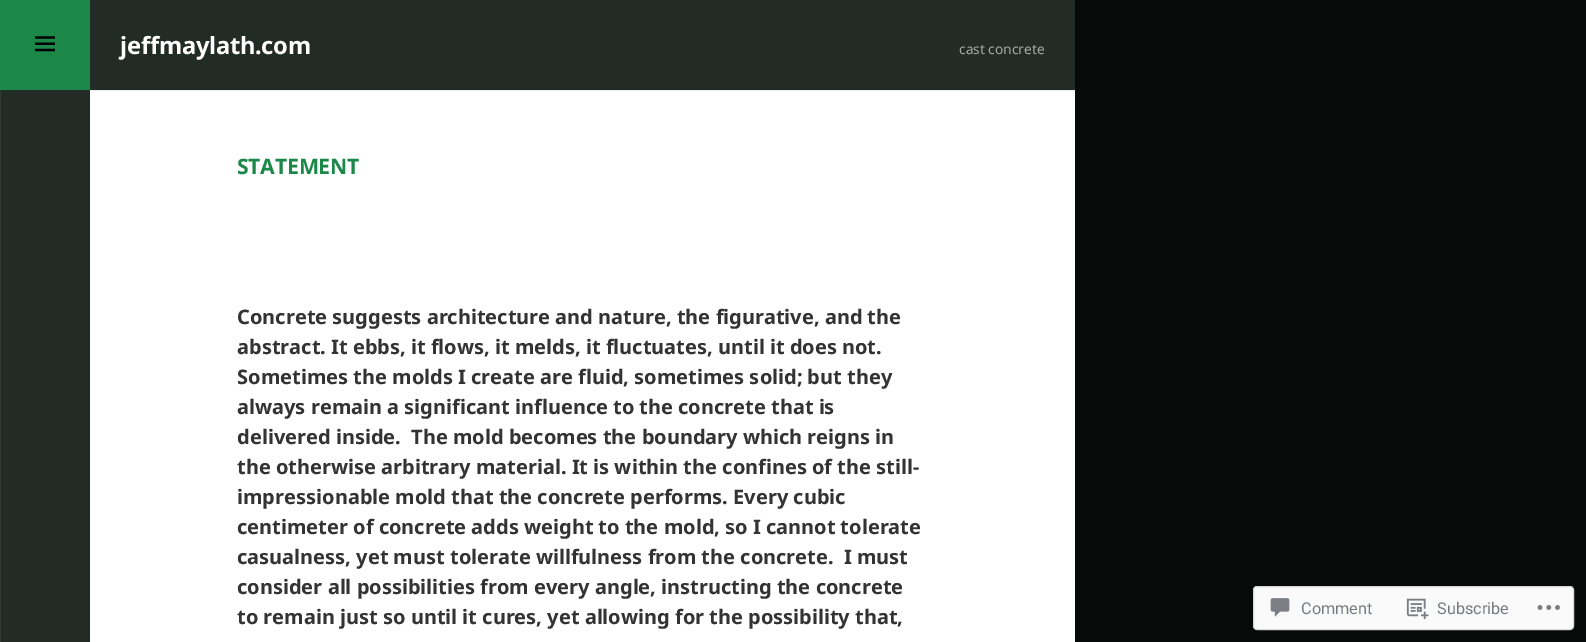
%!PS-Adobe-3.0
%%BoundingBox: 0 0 1586 642
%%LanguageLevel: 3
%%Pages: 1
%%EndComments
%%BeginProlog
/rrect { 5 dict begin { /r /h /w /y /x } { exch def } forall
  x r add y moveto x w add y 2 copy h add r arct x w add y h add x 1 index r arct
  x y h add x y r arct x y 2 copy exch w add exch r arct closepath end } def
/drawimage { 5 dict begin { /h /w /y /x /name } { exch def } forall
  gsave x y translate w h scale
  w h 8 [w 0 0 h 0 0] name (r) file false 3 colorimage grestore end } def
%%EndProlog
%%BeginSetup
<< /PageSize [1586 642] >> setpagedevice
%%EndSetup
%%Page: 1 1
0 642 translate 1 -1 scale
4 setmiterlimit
0.031 0.039 0.035 setrgbcolor
0 0 1586 642 rectfill
0.137 0.169 0.153 setrgbcolor
1 90 89 552 rectfill
0.184 0.231 0.2 setrgbcolor
0 90 1 552 rectfill
1 setgray
90 91 985 551 rectfill
0.137 0.169 0.153 setrgbcolor
90 0 985 90 rectfill
0.929 setgray
90 90 985 1 rectfill
0.106 0.529 0.282 setrgbcolor
0 0 90 90 rectfill
(images/1.raw) 35 36 20 16 drawimage
0.98 setgray
1253.5 586.5 320 43 3.5 rrect gsave fill grestore
0.847 0.847 0.855 setrgbcolor
stroke
(images/2.raw) 1270 598 20 19 drawimage
(images/3.raw) 1406 598 23 22 drawimage
(images/4.raw) 1537 605 23 5 drawimage
/NotoSans-Bold [23.75 0 0 -23.75 0 0] selectfont
1 setgray
120 54 moveto -0.25 0 (jeffmaylath.com) ashow
/NotoSans-Regular [13.75 0 0 -13.75 0 0] selectfont
0.655 0.667 0.663 setrgbcolor
959 54 moveto (cast concrete) show
/NotoSans-Bold [21.25 0 0 -21.25 0 0] selectfont
0.106 0.529 0.282 setrgbcolor
237 174 moveto -0.25 0 (STATEMENT) ashow
/NotoSans-Bold [20 0 0 -20 0 0] selectfont
0.2 setgray
237 324 moveto (Concrete suggests architecture and nature, the figurative, and the) show
237 354 moveto (abstract. It ebbs, it flows, it melds, it fluctuates, until it does not.) show
237 384 moveto (Sometimes the molds I create are fluid, sometimes solid; but they) show
237 414 moveto (always remain a significant influence to the concrete that is) show
237 444 moveto (delivered inside.  The mold becomes the boundary which reigns in) show
237 474 moveto (the otherwise arbitrary material. It is within the confines of the still-) show
237 504 moveto (impressionable mold that the concrete performs. Every cubic) show
237 534 moveto (centimeter of concrete adds weight to the mold, so I cannot tolerate) show
237 564 moveto (casualness, yet must tolerate willfulness from the concrete.  I must) show
237 594 moveto (consider all possibilities from every angle, instructing the concrete) show
237 624 moveto (to remain just so until it cures, yet allowing for the possibility that,) show
/Roboto-Regular [16.25 0 0 -16.25 0 0] selectfont
0.463 0.478 0.502 setrgbcolor
1301 614 moveto (Comment) show
1437 614 moveto (Subscribe) show
showpage
%%EOF
